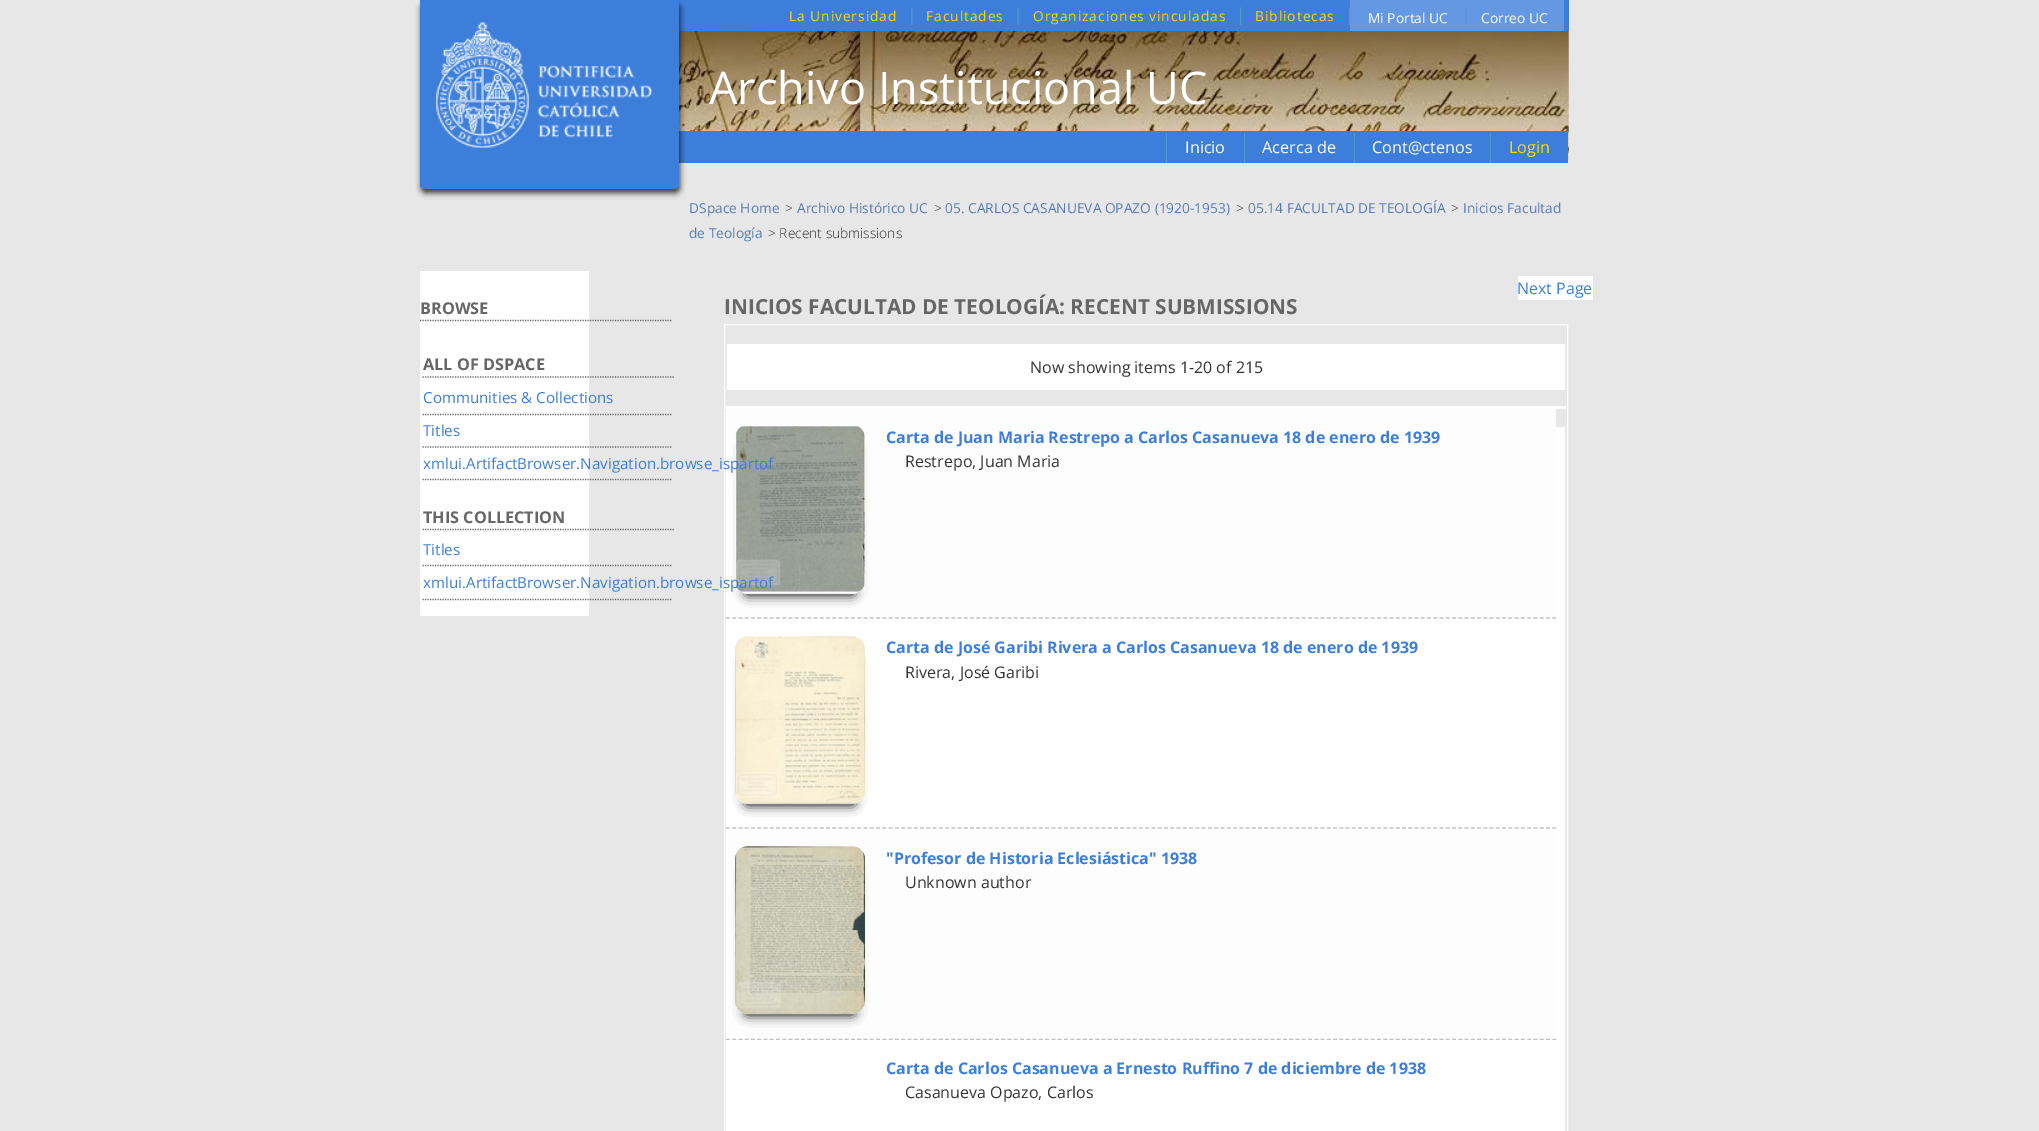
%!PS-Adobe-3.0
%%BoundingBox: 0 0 2039 1131
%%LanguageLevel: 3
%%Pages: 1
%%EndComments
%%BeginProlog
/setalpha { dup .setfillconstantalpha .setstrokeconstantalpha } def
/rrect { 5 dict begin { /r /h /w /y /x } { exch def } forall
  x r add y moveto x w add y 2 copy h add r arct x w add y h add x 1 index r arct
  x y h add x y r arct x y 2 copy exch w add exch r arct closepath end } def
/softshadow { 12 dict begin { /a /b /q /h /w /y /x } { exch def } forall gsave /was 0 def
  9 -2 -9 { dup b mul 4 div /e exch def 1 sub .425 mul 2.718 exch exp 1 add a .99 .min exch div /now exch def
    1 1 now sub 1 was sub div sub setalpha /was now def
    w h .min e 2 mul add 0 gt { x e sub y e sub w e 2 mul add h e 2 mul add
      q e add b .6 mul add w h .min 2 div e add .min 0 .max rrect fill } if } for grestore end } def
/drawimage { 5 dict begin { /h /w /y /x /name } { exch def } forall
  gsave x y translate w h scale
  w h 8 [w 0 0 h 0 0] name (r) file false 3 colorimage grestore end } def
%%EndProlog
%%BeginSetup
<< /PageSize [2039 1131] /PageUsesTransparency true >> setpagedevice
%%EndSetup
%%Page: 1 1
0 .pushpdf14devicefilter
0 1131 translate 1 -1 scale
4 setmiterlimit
0.906 setgray
0 0 2039 1131 rectfill
0.239 0.494 0.859 setrgbcolor
679 0 890 31 rectfill
(images/10.raw) 679 31 890 131 drawimage
679 131 889 32 rectfill
0 setgray
421 4 259 189 5 3 0.75 softshadow
0.239 0.494 0.859 setrgbcolor
newpath 420 0 moveto 679 0 lineto 679 184 lineto 679 187 677 189 674 189 curveto 425 189 lineto 422 189 420 187 420 184 curveto closepath fill
(images/1.raw) 436 22 216 126 drawimage
(images/2.raw) 911 7 2 18 drawimage
(images/3.raw) 1017 7 2 18 drawimage
(images/4.raw) 1240 7 2 18 drawimage
(images/5.raw) 1348 7 2 18 drawimage
0.392 0.596 0.886 setrgbcolor
1350 0 214 31 rectfill
(images/6.raw) 1465 7 2 18 drawimage
0.333 0.6 0.8 setrgbcolor
1166 133 1 30 rectfill
1244 133 1 30 rectfill
1354 133 1 30 rectfill
1490 133 1 30 rectfill
1 setgray
420 271 169 345 rectfill
0.4 setgray
1.2 setlinewidth
[1.25 1.25] 0 setdash
newpath 420 320.5 moveto 672.5 320.5 lineto stroke
newpath 422.5 377 moveto 675 377 lineto stroke
newpath 422.5 414.5 moveto 672.5 414.5 lineto stroke
newpath 422.5 447 moveto 672.5 447 lineto stroke
newpath 422.5 479.5 moveto 672.5 479.5 lineto stroke
newpath 422.5 529.5 moveto 675 529.5 lineto stroke
newpath 422.5 565.5 moveto 672.5 565.5 lineto stroke
newpath 422.5 599.5 moveto 672.5 599.5 lineto stroke
1 setgray
1 setlinewidth
[] 0 setdash
724.5 324.5 843 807 rectstroke
1556 427 9 704 rectfill
1518 276 75 24 rectfill
727 344 838 46 rectfill
725 406 841 3 rectfill
0.992 setgray
726 409 830 210 rectfill
0.757 setgray
1.2 setlinewidth
[3.75 2.51] 0 setdash
newpath 726 618 moveto 1556 618 lineto stroke
0 setgray
745 446 110 149 2.5 5.5 1 softshadow
(images/7.raw) 735 425 130 169 drawimage
1 setgray
726 619 830 210 rectfill
0.757 setgray
newpath 726 828 moveto 1556 828 lineto stroke
0 setgray
745 658 110 147 2.5 5.5 1 softshadow
(images/8.raw) 735 636 130 168 drawimage
0.992 setgray
726 829 830 211 rectfill
0.757 setgray
newpath 726 1039.5 moveto 1556 1039.5 lineto stroke
0 setgray
745 868 110 147 2.5 5.5 1 softshadow
(images/9.raw) 735 846 130 168 drawimage
1 setgray
726 1040 830 91 rectfill
/OpenSans-Regular [13.75 0 0 -13.75 0 0] selectfont
0.988 0.851 0 setrgbcolor
789 21 moveto 0.95 0 (La Universidad) ashow
926 21 moveto 0.95 0 (Facultades) ashow
1033 21 moveto 0.95 0 (Organizaciones vinculadas) ashow
1255 21 moveto 0.95 0 (Bibliotecas) ashow
1 setgray
1368 23 moveto (Mi Portal UC) show
1481 23 moveto (Correo UC) show
/OpenSans-Regular [45 0 0 -45 0 0] selectfont
709 104 moveto (Archivo Institucional UC) show
/OpenSans-Regular [16.25 0 0 -16.25 0 0] selectfont
1185 153 moveto (Inicio) show
1262 153 moveto (Acerca de) show
1372 153 moveto (Cont@ctenos) show
0.988 0.851 0 setrgbcolor
1509 153 moveto (Login) show
/OpenSans-Regular [13.75 0 0 -13.75 0 0] selectfont
0.341 0.486 0.702 setrgbcolor
689 213 moveto (DSpace Home) show
/OpenSans-Light [13.75 0 0 -13.75 0 0] selectfont
0.2 setgray
785 213 moveto (>) show
/OpenSans-Regular [13.75 0 0 -13.75 0 0] selectfont
0.341 0.486 0.702 setrgbcolor
797 213 moveto (Archivo Histórico UC) show
/OpenSans-Light [13.75 0 0 -13.75 0 0] selectfont
0.2 setgray
934 213 moveto (>) show
/OpenSans-Regular [13.75 0 0 -13.75 0 0] selectfont
0.341 0.486 0.702 setrgbcolor
945 213 moveto (05. CARLOS CASANUEVA OPAZO \(1920-1953\)) show
/OpenSans-Light [13.75 0 0 -13.75 0 0] selectfont
0.2 setgray
1236 213 moveto (>) show
/OpenSans-Regular [13.75 0 0 -13.75 0 0] selectfont
0.341 0.486 0.702 setrgbcolor
1248 213 moveto (05.14 FACULTAD DE TEOLOGÍA) show
/OpenSans-Light [13.75 0 0 -13.75 0 0] selectfont
0.2 setgray
1451 213 moveto (>) show
/OpenSans-Regular [13.75 0 0 -13.75 0 0] selectfont
0.341 0.486 0.702 setrgbcolor
1463 213 moveto (Inicios Facultad) show
689 238 moveto (de Teología) show
/OpenSans-Light [13.75 0 0 -13.75 0 0] selectfont
0.2 setgray
768 238 moveto (> Recent submissions) show
/OpenSans-Bold [16.25 0 0 -16.25 0 0] selectfont
0.4 setgray
420 314 moveto (BROWSE) show
423 370 moveto (ALL OF DSPACE) show
/OpenSans-Regular [15.2 0 0 -15.2 0 0] selectfont
0.239 0.494 0.859 setrgbcolor
423 403 moveto (Communities & Collections) show
423 436 moveto (Titles) show
423 469 moveto (xmlui.ArtifactBrowser.Navigation.browse_ispartof) show
/OpenSans-Bold [16.25 0 0 -16.25 0 0] selectfont
0.4 setgray
423 523 moveto (THIS COLLECTION) show
/OpenSans-Regular [15.2 0 0 -15.2 0 0] selectfont
0.239 0.494 0.859 setrgbcolor
423 555 moveto (Titles) show
423 588 moveto (xmlui.ArtifactBrowser.Navigation.browse_ispartof) show
/OpenSans-Regular [16 0 0 -16 0 0] selectfont
1517 294 moveto (Next Page) show
0.2 setgray
1030 373 moveto (Now showing items 1-20 of 215) show
/OpenSans-Bold [16 0 0 -16 0 0] selectfont
0.239 0.494 0.859 setrgbcolor
886 443 moveto (Carta de Juan Maria Restrepo a Carlos Casanueva 18 de enero de 1939) show
/OpenSans-Regular [16 0 0 -16 0 0] selectfont
0.2 setgray
905 467 moveto (Restrepo, Juan Maria) show
/OpenSans-Bold [16 0 0 -16 0 0] selectfont
0.239 0.494 0.859 setrgbcolor
886 653 moveto (Carta de José Garibi Rivera a Carlos Casanueva 18 de enero de 1939) show
/OpenSans-Regular [16 0 0 -16 0 0] selectfont
0.2 setgray
905 678 moveto (Rivera, José Garibi) show
/OpenSans-Bold [16 0 0 -16 0 0] selectfont
0.239 0.494 0.859 setrgbcolor
886 864 moveto ("Profesor de Historia Eclesiástica" 1938) show
/OpenSans-Regular [16 0 0 -16 0 0] selectfont
0.2 setgray
905 888 moveto (Unknown author) show
/OpenSans-Bold [16 0 0 -16 0 0] selectfont
0.239 0.494 0.859 setrgbcolor
886 1074 moveto (Carta de Carlos Casanueva a Ernesto Ruffino 7 de diciembre de 1938) show
/OpenSans-Regular [16 0 0 -16 0 0] selectfont
0.2 setgray
905 1098 moveto (Casanueva Opazo, Carlos) show
/OpenSans-Bold [20.8 0 0 -20.8 0 0] selectfont
0.4 setgray
724 314 moveto (INICIOS FACULTAD DE TEOLOGÍA: RECENT SUBMISSIONS) show
.poppdf14devicefilter showpage
%%EOF
